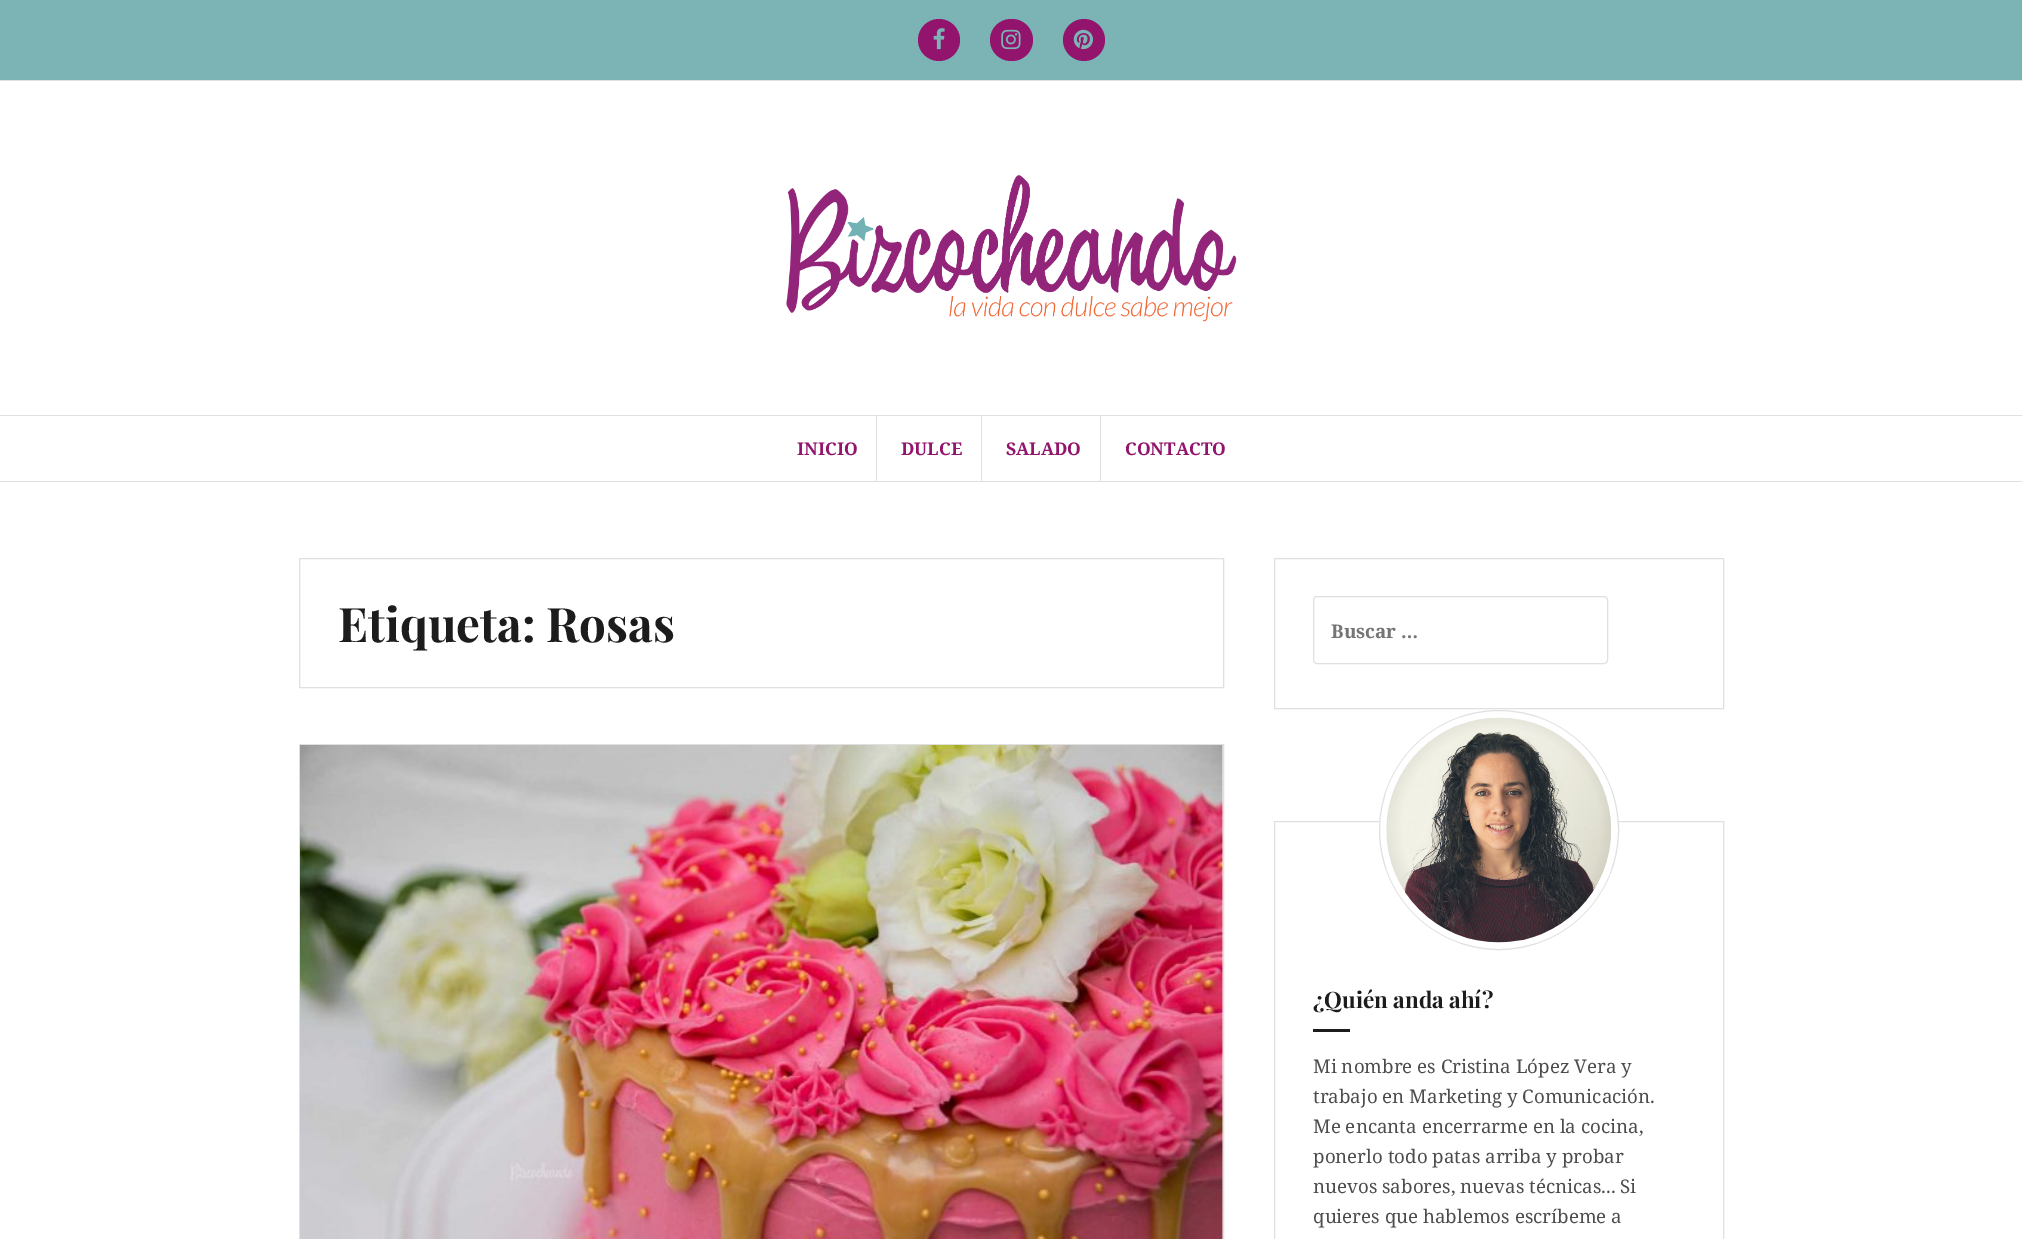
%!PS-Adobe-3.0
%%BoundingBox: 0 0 2022 1239
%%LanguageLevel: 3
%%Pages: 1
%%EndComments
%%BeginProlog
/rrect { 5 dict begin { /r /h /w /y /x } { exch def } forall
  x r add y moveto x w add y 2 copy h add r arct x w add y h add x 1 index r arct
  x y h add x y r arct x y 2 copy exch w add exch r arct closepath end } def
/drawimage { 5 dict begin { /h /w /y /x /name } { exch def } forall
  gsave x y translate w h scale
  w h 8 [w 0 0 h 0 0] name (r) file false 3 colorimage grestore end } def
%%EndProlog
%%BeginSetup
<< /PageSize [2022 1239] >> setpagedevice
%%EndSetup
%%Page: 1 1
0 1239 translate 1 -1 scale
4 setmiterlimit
1 setgray
0 0 2022 1239 rectfill
0.486 0.706 0.71 setrgbcolor
0 0 2022 80 rectfill
0.878 setgray
0 80 2022 1 rectfill
0.573 0.078 0.424 setrgbcolor
newpath 939 40 21 0 360 arc closepath fill
(images/1.raw) 933 28 12 22 drawimage
990 19 43 42 21 rrect fill
(images/2.raw) 1001 29 20 21 drawimage
newpath 1084 40 21 0 360 arc closepath fill
(images/3.raw) 1073 29 20 21 drawimage
(images/4.raw) 786 175 451 147 drawimage
0.878 setgray
0 415 2022 1 rectfill
0 481 2022 1 rectfill
876 416 1 65 rectfill
981 416 1 65 rectfill
1100 416 1 65 rectfill
299.5 558.5 924 129 rectstroke
299.5 744.5 924 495 rectstroke
(images/5.raw) 300 745 923 494 drawimage
1274.5 558.5 449 150 rectstroke
1313.5 596.5 294 67 3.5 rrect stroke
1274.5 821.5 449 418 rectstroke
1 setgray
newpath 1499 830 119.5 0 360 arc closepath gsave fill grestore
0.878 setgray
stroke
(images/6.raw) 1386 717 225 226 drawimage
0.11 setgray
1313 1029 37 3 rectfill
/NotoSerif-Bold [17.5 0 0 -17.5 0 0] selectfont
0.573 0.078 0.424 setrgbcolor
797 455 moveto (INICIO) show
901 455 moveto (DULCE) show
1006 455 moveto (SALADO) show
1125 455 moveto (CONTACTO) show
/PlayfairDisplay-Bold [47.5 0 0 -47.5 0 0] selectfont
0.11 setgray
338 642 moveto (Etiqueta: Rosas) show
/NotoSerif-Bold [18.75 0 0 -18.75 0 0] selectfont
0.459 setgray
1331 638 moveto (Buscar …) show
/PlayfairDisplay-Bold [22.5 0 0 -22.5 0 0] selectfont
0.11 setgray
1313 1008 moveto (¿Quién anda ahí?) show
/NotoSerif-Regular [18.75 0 0 -18.75 0 0] selectfont
0.298 setgray
1313 1073 moveto (Mi nombre es Cristina López Vera y) show
1313 1103 moveto (trabajo en Marketing y Comunicación.) show
1313 1133 moveto (Me encanta encerrarme en la cocina,) show
1313 1163 moveto (ponerlo todo patas arriba y probar) show
1313 1193 moveto (nuevos sabores, nuevas técnicas... Si) show
1313 1223 moveto (quieres que hablemos escríbeme a) show
showpage
%%EOF
